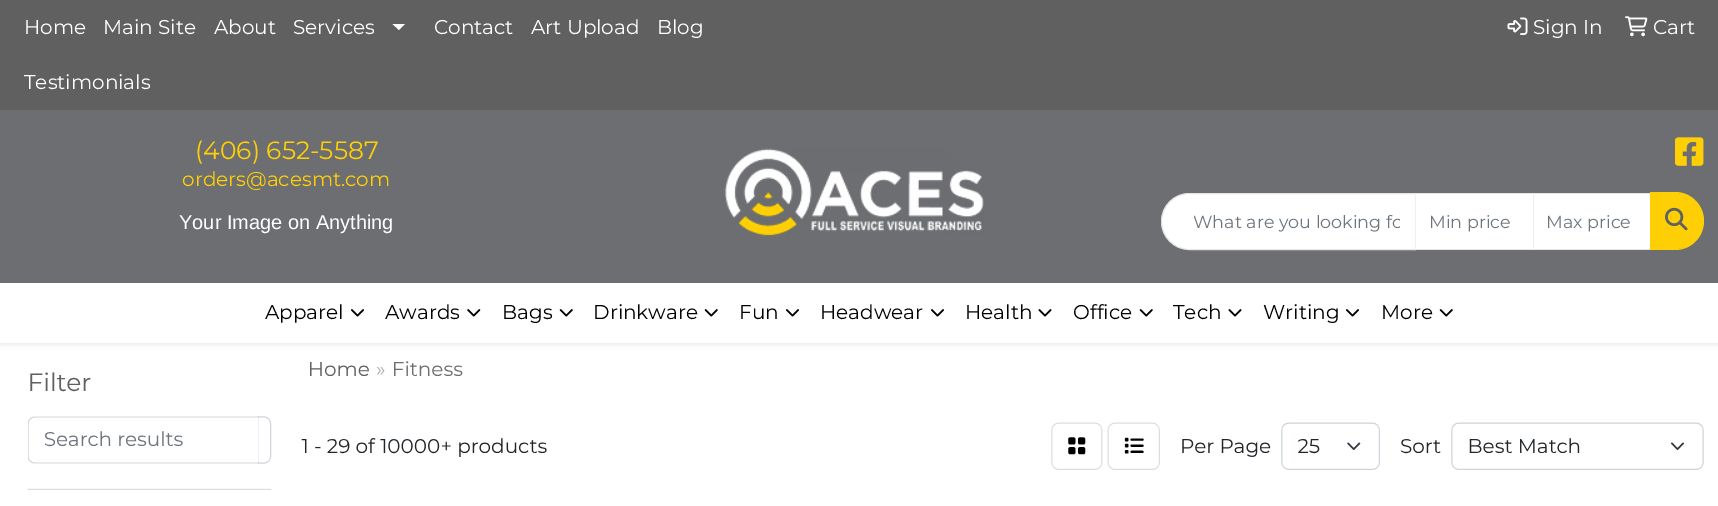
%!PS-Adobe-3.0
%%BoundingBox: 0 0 1718 506
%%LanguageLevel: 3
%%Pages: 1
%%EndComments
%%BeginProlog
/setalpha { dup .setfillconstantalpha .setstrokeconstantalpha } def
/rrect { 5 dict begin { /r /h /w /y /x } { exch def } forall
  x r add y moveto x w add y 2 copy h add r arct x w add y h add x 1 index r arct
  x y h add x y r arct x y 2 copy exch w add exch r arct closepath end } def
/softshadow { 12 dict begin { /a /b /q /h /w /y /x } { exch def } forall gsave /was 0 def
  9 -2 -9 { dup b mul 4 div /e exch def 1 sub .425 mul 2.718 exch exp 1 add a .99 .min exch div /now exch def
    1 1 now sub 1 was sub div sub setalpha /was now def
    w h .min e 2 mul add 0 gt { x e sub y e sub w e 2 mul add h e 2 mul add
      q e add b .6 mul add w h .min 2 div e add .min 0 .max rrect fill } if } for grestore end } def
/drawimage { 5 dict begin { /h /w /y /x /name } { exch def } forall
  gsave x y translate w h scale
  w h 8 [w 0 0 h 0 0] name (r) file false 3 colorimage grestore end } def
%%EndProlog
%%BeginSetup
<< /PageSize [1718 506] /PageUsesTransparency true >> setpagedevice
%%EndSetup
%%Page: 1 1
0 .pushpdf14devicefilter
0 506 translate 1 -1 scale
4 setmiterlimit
1 setgray
0 0 1718 506 rectfill
0.424 0.431 0.443 setrgbcolor
0 110 1718 173 rectfill
0.38 0.376 0.38 setrgbcolor
0 0 1718 110 rectfill
1 setgray
newpath 392.5 24 moveto 405 24 lineto 399 30 lineto closepath fill
(images/1.raw) 1507 17 21 18 drawimage
(images/2.raw) 1625 16 23 21 drawimage
(images/3.raw) 724 148 260 88 drawimage
(images/4.raw) 1675 137 29 29 drawimage
newpath 1189.5 193.5 moveto 1415.5 193.5 lineto 1415.5 249.5 lineto 1189.5 249.5 lineto 1174 249.5 1161.5 237 1161.5 221.5 curveto 1161.5 206 1174 193.5 1189.5 193.5 curveto closepath gsave fill grestore
0.894 setgray
stroke
1 setgray
1416 194 117 55 rectfill
0.894 setgray
1415 193 236 1 rectfill
1415 249 236 1 rectfill
0.937 setgray
1415 193 1 57 rectfill
1 setgray
1534 194 116 55 rectfill
0.937 setgray
1533 193 1 57 rectfill
1 0.812 0.024 setrgbcolor
newpath 1650 194 moveto 1675.5 194 lineto 1690.5 194 1703 206.5 1703 221.5 curveto 1703 236.5 1690.5 249 1675.5 249 curveto 1650 249 lineto closepath fill
newpath 1650 192 moveto 1675 192 lineto 1691 192 1704 205 1704 221 curveto 1704 237 1691 250 1675 250 curveto 1650 250 lineto closepath 1650 194 moveto 1675 194 lineto 1690 194 1702 206 1702 221 curveto 1702 236 1690 249 1675 249 curveto 1650 249 lineto closepath eofill
(images/5.raw) 1665 207 23 24 drawimage
0 setgray
0 285 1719 60 0 2.5 0.07 softshadow
1 setgray
0 283 1718 60 rectfill
(images/6.raw) 351 309 13 8 drawimage
(images/7.raw) 467 309 14 8 drawimage
(images/8.raw) 559 309 14 8 drawimage
(images/8.raw) 704 309 14 8 drawimage
(images/6.raw) 786 309 13 8 drawimage
(images/6.raw) 931 309 13 8 drawimage
(images/9.raw) 1038 309 14 8 drawimage
(images/8.raw) 1139 309 14 8 drawimage
(images/9.raw) 1228 309 14 8 drawimage
(images/6.raw) 1346 309 13 8 drawimage
(images/8.raw) 1439 309 14 8 drawimage
(images/10.raw) 27 361 1677 129 drawimage
/Montserrat-Thin [20 0 0 -20 0 0] selectfont
24 34 moveto (Home) show
103 34 moveto (Main Site) show
214 34 moveto (About) show
293 34 moveto (Services) show
434 34 moveto (Contact) show
531 34 moveto (Art Upload) show
657 34 moveto (Blog) show
24 89 moveto (Testimonials) show
1533 34 moveto (Sign In) show
1653 34 moveto (Cart) show
/Montserrat-Thin [25 0 0 -25 0 0] selectfont
1 0.812 0.024 setrgbcolor
195 159 moveto (\(406\) 652-5587) show
/Montserrat-Thin [20 0 0 -20 0 0] selectfont
182 186 moveto (orders@acesmt.com) show
/LiberationSans-Regular [20 0 0 -20 0 0] selectfont
1 setgray
179 229 moveto (Your Image on Anything) show
gsave
1194 210 206 23 rectclip
/Montserrat-Thin [17.5 0 0 -17.5 0 0] selectfont
0.424 0.459 0.49 setrgbcolor
1193 228 moveto (What are you looking fo) show
grestore
/Montserrat-Thin [17.5 0 0 -17.5 0 0] selectfont
0.424 0.459 0.49 setrgbcolor
1429 228 moveto (Min price) show
1546 228 moveto (Max price) show
/Montserrat-Thin [20 0 0 -20 0 0] selectfont
0 setgray
265 319 moveto (Apparel) show
385 319 moveto (Awards) show
502 319 moveto (Bags) show
593 319 moveto (Drinkware) show
739 319 moveto (Fun) show
820 319 moveto (Headwear) show
965 319 moveto (Health) show
1073 319 moveto (Office) show
1173 319 moveto (Tech) show
1263 319 moveto (Writing) show
1381 319 moveto (More) show
.poppdf14devicefilter showpage
%%EOF
